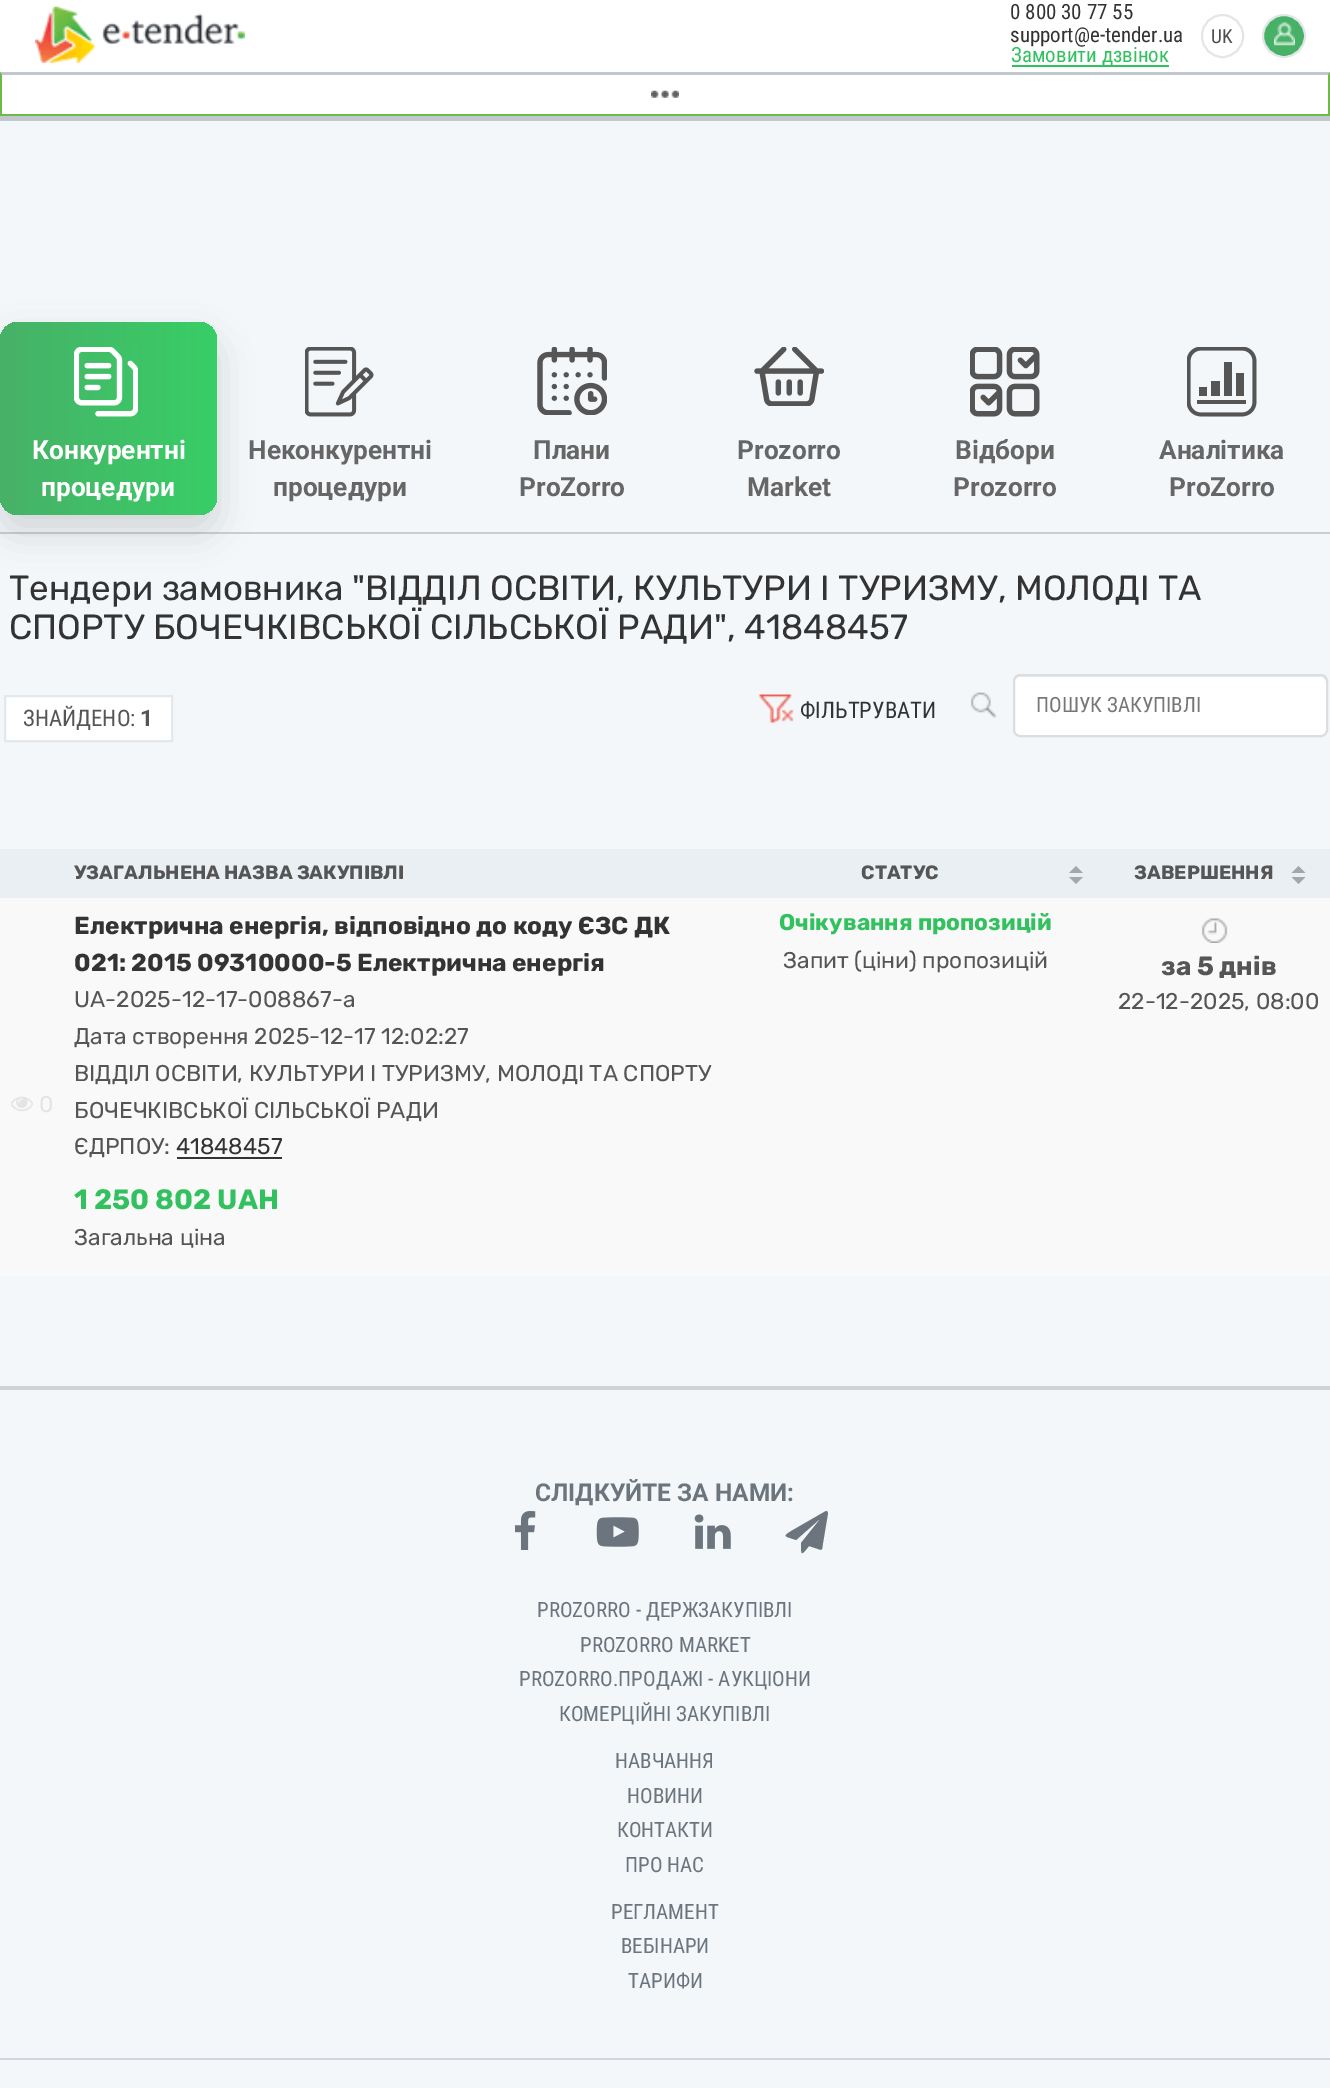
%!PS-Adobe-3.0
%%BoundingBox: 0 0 1330 2088
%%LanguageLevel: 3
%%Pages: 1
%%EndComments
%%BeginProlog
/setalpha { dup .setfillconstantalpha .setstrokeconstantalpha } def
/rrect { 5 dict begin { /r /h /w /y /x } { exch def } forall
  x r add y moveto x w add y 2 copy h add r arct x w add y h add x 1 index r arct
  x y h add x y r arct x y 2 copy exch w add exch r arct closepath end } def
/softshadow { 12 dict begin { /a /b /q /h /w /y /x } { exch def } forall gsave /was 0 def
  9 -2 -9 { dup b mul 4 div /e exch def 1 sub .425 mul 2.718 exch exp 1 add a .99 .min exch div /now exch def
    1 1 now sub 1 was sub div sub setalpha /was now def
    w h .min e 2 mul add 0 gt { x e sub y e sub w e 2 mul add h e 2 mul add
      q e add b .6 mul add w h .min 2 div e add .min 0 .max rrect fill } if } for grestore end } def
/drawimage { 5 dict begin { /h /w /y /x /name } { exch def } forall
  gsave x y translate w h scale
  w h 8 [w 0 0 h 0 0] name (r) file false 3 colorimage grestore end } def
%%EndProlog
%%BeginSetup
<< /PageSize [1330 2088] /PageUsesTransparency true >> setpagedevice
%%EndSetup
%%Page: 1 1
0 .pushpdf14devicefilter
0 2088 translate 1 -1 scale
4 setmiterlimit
0.953 0.969 0.98 setrgbcolor
0 0 1330 2088 rectfill
1 setgray
0 0 1330 114 rectfill
0.753 0.784 0.808 setrgbcolor
0 116 1330 5 rectfill
(images/1.raw) 35 6 210 57 drawimage
0.2 0.757 0.373 setrgbcolor
1012 65 157 2 rectfill
0.282 0.694 0.408 setrgbcolor
newpath 1284 36 21 0 360 arc closepath gsave fill grestore
0.89 0.898 0.91 setrgbcolor
2 setlinewidth
stroke
1202 15 41 42 20.5 rrect stroke
(images/2.raw) 1274 22 21 24 drawimage
0.753 0.784 0.808 setrgbcolor
newpath 0 72 moveto 1330 72 lineto 1328 75 lineto 2 75 lineto closepath fill
0.427 0.733 0.271 setrgbcolor
newpath 1330 72 moveto 1330 116 lineto 1328 114 lineto 1328 75 lineto closepath fill
0 114 1330 2 rectfill
newpath 0 116 moveto 0 72 lineto 2 75 lineto 2 114 lineto closepath fill
(images/3.raw) 651 90 28 8 drawimage
0.796 0.808 0.816 setrgbcolor
0 532 1330 2 rectfill
0.114 setgray
0 340 217 192 18 17.5 0.15 softshadow
gsave 0 322 217 193 18 rrect clip newpath
<< /ShadingType 2 /ColorSpace /DeviceRGB /Coords [0 418 217 418] /Extend [true true] /Function << /FunctionType 2 /Domain [0 1] /C0 [0.282 0.694 0.408] /C1 [0.22 0.808 0.4] /N 1 >> >> shfill grestore
(images/4.raw) 74 347 64 70 drawimage
(images/5.raw) 305 347 69 70 drawimage
(images/6.raw) 537 347 70 68 drawimage
(images/7.raw) 754 347 70 59 drawimage
(images/8.raw) 970 347 70 70 drawimage
(images/9.raw) 1187 347 70 70 drawimage
1 setgray
newpath 5 696 moveto 172 696 lineto 172 741 lineto 5 741 lineto closepath gsave fill grestore
0.89 0.91 0.925 setrgbcolor
stroke
(images/10.raw) 759 694 35 29 drawimage
(images/11.raw) 970 692 27 26 drawimage
1 setgray
1013 674 315 63 7 rrect fill
0.925 setgray
newpath 1020 677 moveto 1321 677 lineto 1324 677 1326 680 1326 682 curveto 1326 733 lineto 1327 732 1327 731 1327 730 curveto 1327 681 lineto 1327 678 1325 676 1322 676 curveto 1020 676 lineto 1017 676 1015 678 1015 681 curveto 1015 682 lineto 1015 680 1017 677 1020 677 curveto closepath fill
0.859 0.867 0.875 setrgbcolor
1014 675 313 61 6 rrect stroke
0.914 0.937 0.953 setrgbcolor
0 849 1330 49 rectfill
0.639 0.655 0.667 setrgbcolor
newpath 1069 877 moveto 1083 877 lineto 1076 884 lineto closepath 1083 873 moveto 1069 873 lineto 1076 866 lineto closepath fill
newpath 1291.5 877 moveto 1305.5 877 lineto 1298.5 884 lineto closepath 1305.5 873 moveto 1291.5 873 lineto 1298.5 866 lineto closepath fill
0.976 setgray
0 898 1330 378 rectfill
0.2 setgray
177 1157 105 2 rectfill
(images/12.raw) 1201 918 27 25 drawimage
(images/13.raw) 10 1096 23 16 drawimage
0.812 0.827 0.839 setrgbcolor
0 1386 1330 4 rectfill
(images/14.raw) 515 1511 21 39 drawimage
(images/15.raw) 596 1517 43 30 drawimage
(images/16.raw) 694 1514 37 35 drawimage
0.424 0.459 0.49 setrgbcolor
newpath 827 1511 moveto 828 1513 lineto 823 1543 lineto 822 1549 823 1551 818 1549 curveto 809 1546 lineto 801 1556 801 1556 801 1543 curveto 821 1518 lineto 796 1540 lineto 785 1536 781 1537 793 1530 curveto 826 1511 lineto closepath fill
0.824 0.839 0.871 setrgbcolor
0 2058 1330 2 rectfill
/RobotoCondensed-Regular [21 0 0 -21 0 0] selectfont
0.2 setgray
1010 19 moveto (0 800 30 77 55) show
1010 42 moveto (support@e-tender.ua) show
0.2 0.757 0.373 setrgbcolor
1011 62 moveto (Замовити дзвінок) show
/RobotoCondensed-Regular [19.25 0 0 -19.25 0 0] selectfont
0.306 setgray
1211 43 moveto (UK) show
/Roboto-Bold [26.25 0 0 -26.25 0 0] selectfont
1 setgray
32 459 moveto (Конкурентні) show
41 496 moveto (процедури) show
0.4 setgray
248 459 moveto (Неконкурентні) show
273 496 moveto (процедури) show
533 459 moveto (Плани) show
519 496 moveto (ProZorro) show
737 459 moveto (Prozorro) show
747 496 moveto (Market) show
955 459 moveto (Відбори) show
953 496 moveto (Prozorro) show
1159 459 moveto (Аналітика) show
1169 496 moveto (ProZorro) show
/Rubik-Regular [35 0 0 -35 0 0] selectfont
0.2 setgray
9 600 moveto (Тендери замовника "ВІДДІЛ ОСВІТИ, КУЛЬТУРИ І ТУРИЗМУ, МОЛОДІ ТА) show
9 639 moveto (СПОРТУ БОЧЕЧКІВСЬКОЇ СІЛЬСЬКОЇ РАДИ", 41848457) show
/RobotoCondensed-Regular [22.75 0 0 -22.75 0 0] selectfont
0.333 setgray
23 726 moveto (ЗНАЙДЕНО:) show
/Roboto-Bold [22.75 0 0 -22.75 0 0] selectfont
140 726 moveto (1) show
/RobotoCondensed-Regular [22.75 0 0 -22.75 0 0] selectfont
0.2 setgray
800 718 moveto (ФІЛЬТРУВАТИ) show
/RobotoCondensed-Regular [21 0 0 -21 0 0] selectfont
0.467 setgray
1036 712 moveto (ПОШУК ЗАКУПІВЛІ) show
/Rubik-Bold [19.25 0 0 -19.25 0 0] selectfont
0.333 setgray
74 879 moveto (УЗАГАЛЬНЕНА НАЗВА ЗАКУПІВЛІ) show
861 879 moveto (СТАТУС) show
1134 879 moveto (ЗАВЕРШЕННЯ) show
/Rubik-Bold [24.5 0 0 -24.5 0 0] selectfont
0.2 setgray
74 934 moveto (Електрична енергія, відповідно до коду ЄЗС ДК) show
74 971 moveto (021: 2015 09310000-5 Електрична енергія) show
/Rubik-Regular [22.75 0 0 -22.75 0 0] selectfont
0.333 setgray
74 1007 moveto (UA-2025-12-17-008867-a) show
74 1044 moveto (Дата створення 2025-12-17 12:02:27) show
74 1081 moveto (ВІДДІЛ ОСВІТИ, КУЛЬТУРИ І ТУРИЗМУ, МОЛОДІ ТА СПОРТУ) show
74 1118 moveto (БОЧЕЧКІВСЬКОЇ СІЛЬСЬКОЇ РАДИ) show
74 1154 moveto (ЄДРПОУ:) show
0.2 setgray
176 1154 moveto (41848457) show
/Rubik-Bold [28 0 0 -28 0 0] selectfont
0.2 0.757 0.373 setrgbcolor
74 1209 moveto (1 250 802 UAH) show
/Rubik-Regular [22.75 0 0 -22.75 0 0] selectfont
0.333 setgray
74 1245 moveto (Загальна ціна) show
/Rubik-Bold [22.75 0 0 -22.75 0 0] selectfont
0.2 0.757 0.373 setrgbcolor
779 930 moveto (Очікування пропозицій) show
/Rubik-Regular [22.75 0 0 -22.75 0 0] selectfont
0.333 setgray
783 968 moveto (Запит \(ціни\) пропозицій) show
/Rubik-Bold [26.25 0 0 -26.25 0 0] selectfont
1161 975 moveto (за 5 днів) show
/Rubik-Regular [22.75 0 0 -22.75 0 0] selectfont
1118 1009 moveto (22-12-2025, 08:00) show
0.894 setgray
39 1112 moveto (0) show
/Roboto-Bold [24.5 0 0 -24.5 0 0] selectfont
0.424 0.459 0.49 setrgbcolor
535 1501 moveto (СЛІДКУЙТЕ ЗА НАМИ:) show
/RobotoCondensed-Regular [21 0 0 -21 0 0] selectfont
537 1617 moveto (PROZORRO - ДЕРЖЗАКУПІВЛІ) show
580 1652 moveto (PROZORRO MARKET) show
519 1686 moveto (PROZORRO.ПРОДАЖІ - АУКЦІОНИ) show
559 1721 moveto (КОМЕРЦІЙНІ ЗАКУПІВЛІ) show
615 1768 moveto (НАВЧАННЯ) show
627 1803 moveto (НОВИНИ) show
617 1837 moveto (КОНТАКТИ) show
625 1872 moveto (ПРО НАС) show
611 1919 moveto (РЕГЛАМЕНТ) show
621 1953 moveto (ВЕБІНАРИ) show
628 1988 moveto (ТАРИФИ) show
.poppdf14devicefilter showpage
%%EOF
